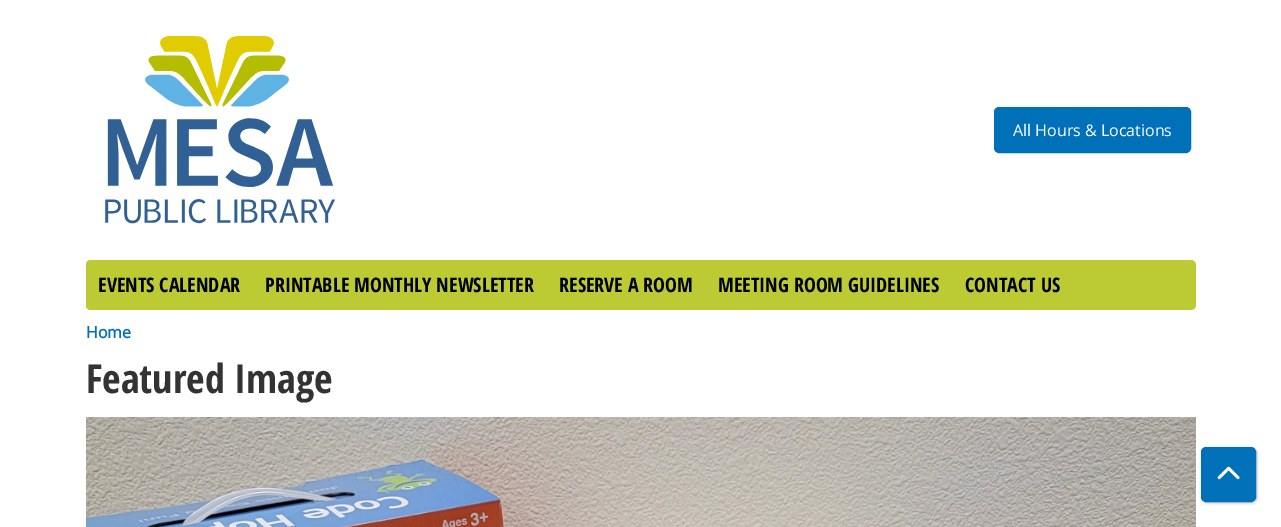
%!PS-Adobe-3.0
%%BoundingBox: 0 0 1281 527
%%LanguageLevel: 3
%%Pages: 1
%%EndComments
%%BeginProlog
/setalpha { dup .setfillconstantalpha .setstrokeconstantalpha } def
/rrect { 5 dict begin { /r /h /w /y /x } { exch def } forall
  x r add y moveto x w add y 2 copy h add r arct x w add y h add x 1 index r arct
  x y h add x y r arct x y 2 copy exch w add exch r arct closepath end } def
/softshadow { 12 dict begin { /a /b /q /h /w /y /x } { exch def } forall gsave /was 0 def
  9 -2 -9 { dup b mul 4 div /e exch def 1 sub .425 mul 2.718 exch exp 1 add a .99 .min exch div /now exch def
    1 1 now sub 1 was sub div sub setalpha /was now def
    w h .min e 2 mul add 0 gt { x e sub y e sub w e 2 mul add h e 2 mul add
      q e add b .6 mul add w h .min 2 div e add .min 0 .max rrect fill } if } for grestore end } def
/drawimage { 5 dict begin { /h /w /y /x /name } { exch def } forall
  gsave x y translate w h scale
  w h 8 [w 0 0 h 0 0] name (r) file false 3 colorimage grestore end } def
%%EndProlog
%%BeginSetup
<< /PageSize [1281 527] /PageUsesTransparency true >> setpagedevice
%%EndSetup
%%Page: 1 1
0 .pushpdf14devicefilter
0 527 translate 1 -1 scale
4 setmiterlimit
1 setgray
0 0 1281 527 rectfill
(images/1.raw) 105 36 230 188 drawimage
0 0.443 0.725 setrgbcolor
994.5 107.5 196 45 4.5 rrect gsave fill grestore
stroke
0.737 0.796 0.2 setrgbcolor
86 260 1110 50 5 rrect fill
newpath 91 260 moveto 253 260 lineto 253 310 lineto 91 310 lineto 88 310 86 308 86 305 curveto 86 265 lineto 86 262 88 260 91 260 curveto closepath fill
(images/2.raw) 86 417 1110 110 drawimage
0 setgray
1202 448 55 55 5 1.5 0.25 softshadow
0 0.443 0.725 setrgbcolor
1201.5 447.5 54 54 4.5 rrect gsave fill grestore
stroke
(images/3.raw) 1217 466 23 14 drawimage
/OpenSans-Regular [16 0 0 -16 0 0] selectfont
1 setgray
1013 136 moveto (All Hours & Locations) show
/OpenSansCondensed-Bold [20 0 0 -20 0 0] selectfont
0 setgray
98 292 moveto (EVENTS CALENDAR) show
265 292 moveto (PRINTABLE MONTHLY NEWSLETTER) show
559 292 moveto (RESERVE A ROOM) show
718 292 moveto (MEETING ROOM GUIDELINES) show
965 292 moveto (CONTACT US) show
/OpenSans-Bold [16 0 0 -16 0 0] selectfont
0 0.443 0.725 setrgbcolor
86 338 moveto (Home) show
/OpenSansCondensed-Bold [40 0 0 -40 0 0] selectfont
0.2 setgray
86 393 moveto (Featured Image) show
.poppdf14devicefilter showpage
%%EOF
